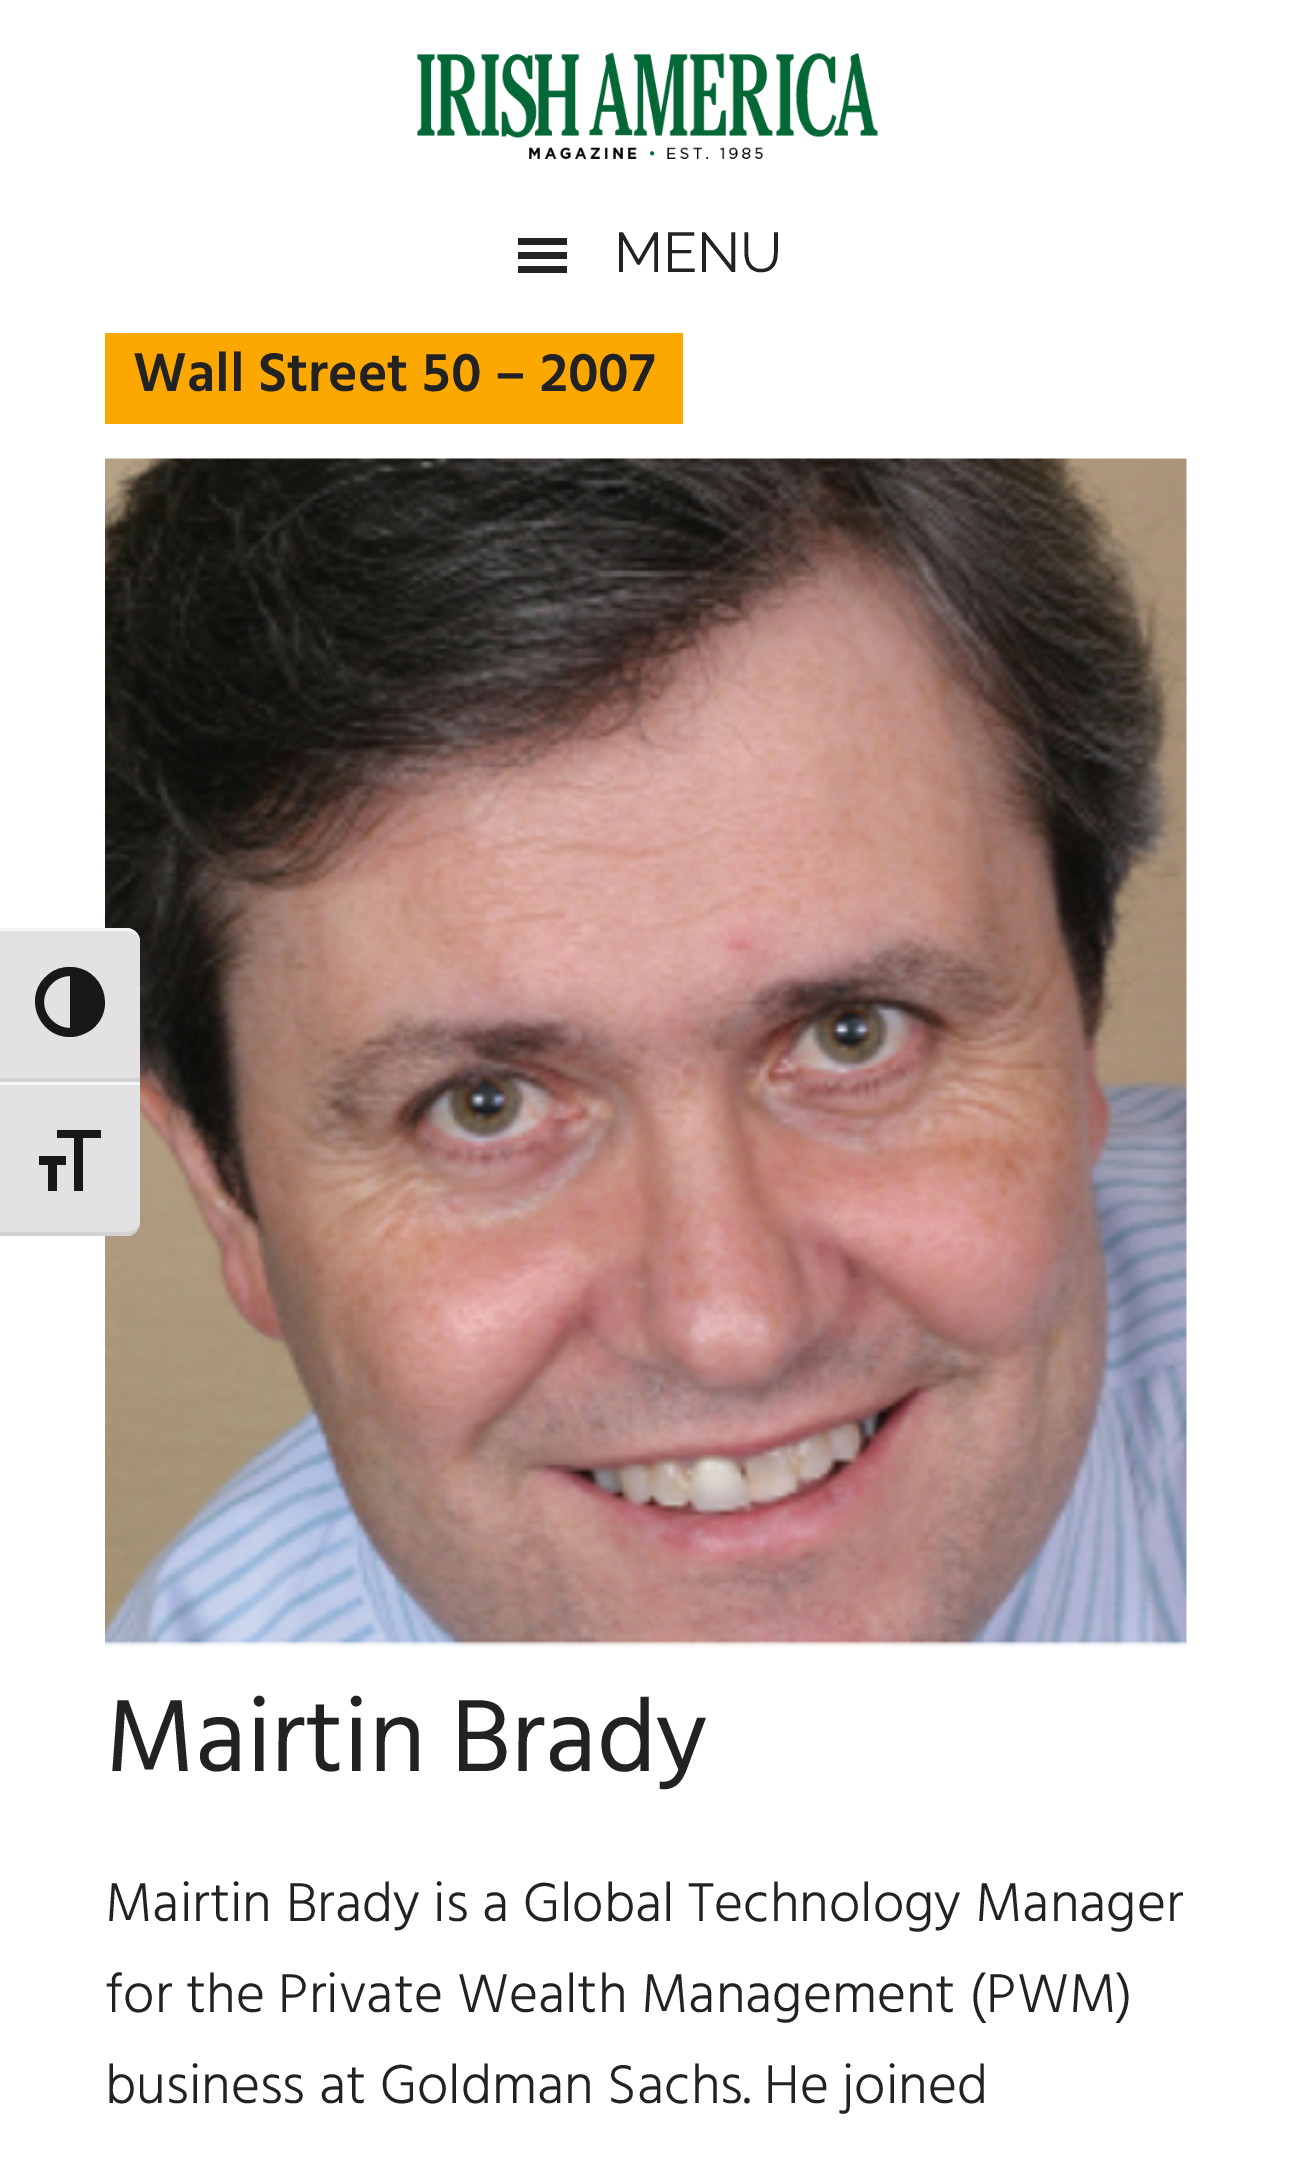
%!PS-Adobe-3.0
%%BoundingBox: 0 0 1291 2159
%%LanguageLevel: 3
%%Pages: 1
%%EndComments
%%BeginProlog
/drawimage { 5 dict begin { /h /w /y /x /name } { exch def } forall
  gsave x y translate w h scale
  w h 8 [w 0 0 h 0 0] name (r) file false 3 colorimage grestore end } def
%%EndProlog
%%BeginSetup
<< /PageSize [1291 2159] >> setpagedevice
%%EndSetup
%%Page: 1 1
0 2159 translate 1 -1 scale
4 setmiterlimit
1 setgray
0 0 1291 2159 rectfill
(images/2.raw) 105 458 1082 1189 drawimage
0.886 setgray
newpath 0 928 moveto 126 928 lineto 133.5 928 140 934.5 140 942 curveto 140 1082 lineto 0 1082 lineto closepath fill
0.961 setgray
newpath 0 931 moveto 126 931 lineto 134 931 140 936 140 942 curveto 140 934 134 928 126 928 curveto 0 928 lineto closepath fill
0.824 setgray
0 1078 140 4 rectfill
0.094 setgray
newpath 70 967 moveto 62 967 55 969 49 974 curveto 22 994 37 1037 70 1037 curveto 78 1037 85 1034 91 1030 curveto 118 1010 103 967 70 967 curveto closepath 44 1002 moveto 44 988 56 976 70 976 curveto 70 1028 lineto 56 1028 44 1016 44 1002 curveto closepath fill
0.886 setgray
newpath 0 1082 moveto 140 1082 lineto 140 1222 lineto 140 1229.5 133.5 1236 126 1236 curveto 0 1236 lineto closepath fill
0.961 setgray
0 1082 140 3 rectfill
0.824 setgray
newpath 130 1236 moveto 136 1234 140 1228 140 1222 curveto 140 1227 134 1232 126 1232 curveto 0 1232 lineto 0 1236 lineto closepath fill
0.094 setgray
newpath 39 1156 moveto 66 1156 lineto 66 1165 lineto 57 1165 lineto 57 1191 lineto 48 1191 lineto 48 1165 lineto 39 1165 lineto closepath 101 1138 moveto 83 1138 lineto 83 1191 lineto 74 1191 lineto 74 1138 lineto 57 1138 lineto 57 1130 lineto 101 1130 lineto closepath fill
(images/1.raw) 417 52 461 107 drawimage
0.133 setgray
newpath 518 273 moveto 567 273 lineto 567 266 lineto 518 266 lineto closepath 518 238 moveto 518 245 lineto 567 245 lineto 567 238 lineto closepath 518 259 moveto 567 259 lineto 567 252 lineto 518 252 lineto closepath fill
0.988 0.659 0.004 setrgbcolor
105 333 578 91 rectfill
/Raleway-Regular [56 0 0 -56 0 0] selectfont
0.133 setgray
614 272 moveto (MENU) show
/Hind-SemiBold [56 0 0 -56 0 0] selectfont
133 391 moveto (Wall Street 50 – 2007) show
/Hind-Regular [105 0 0 -105 0 0] selectfont
105 1771 moveto (Mairtin Brady) show
/Hind-Light [56 0 0 -56 0 0] selectfont
105 1921 moveto (Mairtin Brady is a Global Technology Manager) show
105 2012 moveto (for the Private Wealth Management \(PWM\)) show
105 2103 moveto (business at Goldman Sachs. He joined) show
showpage
%%EOF
